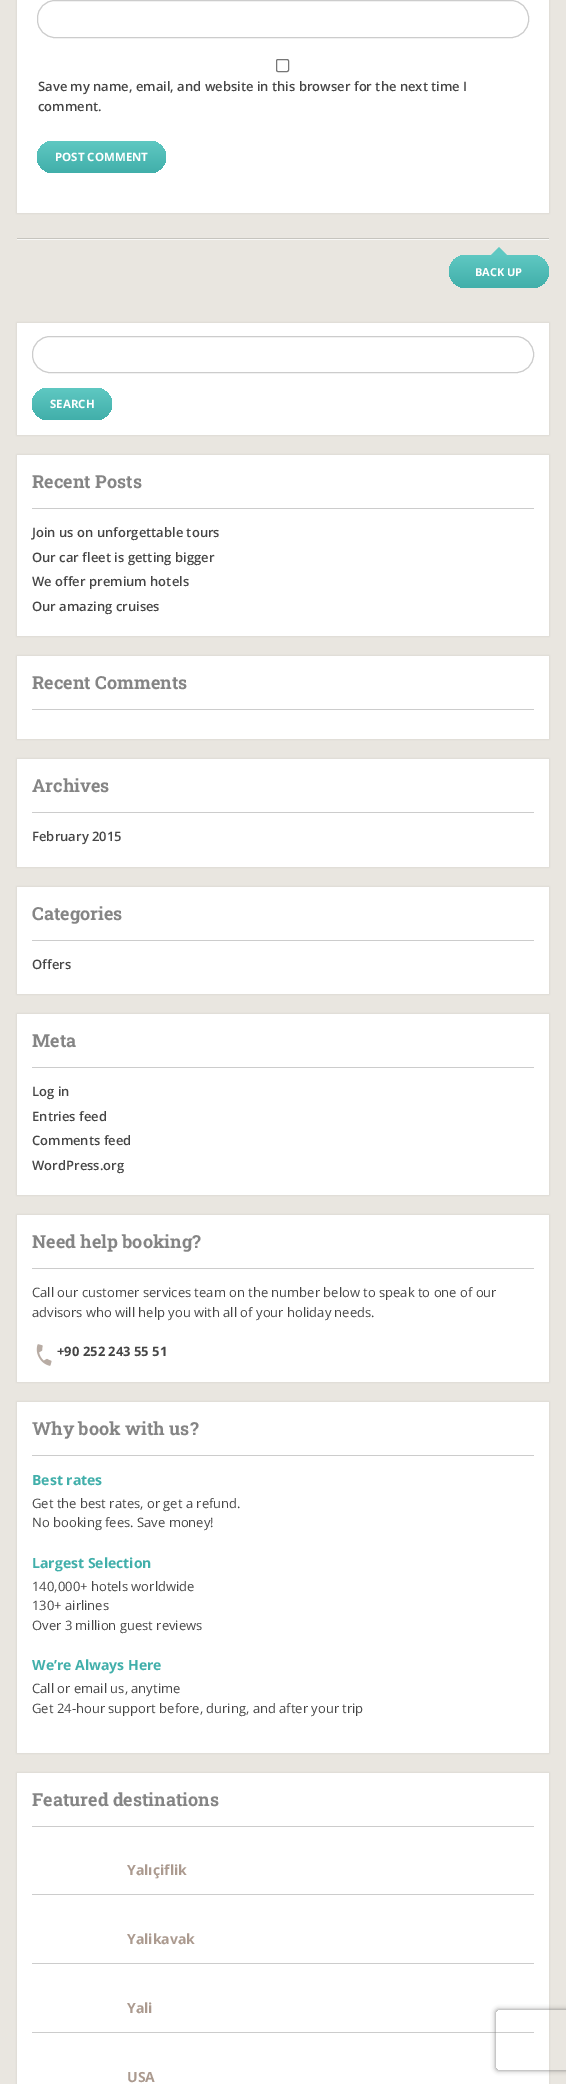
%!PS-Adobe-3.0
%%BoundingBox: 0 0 566 2084
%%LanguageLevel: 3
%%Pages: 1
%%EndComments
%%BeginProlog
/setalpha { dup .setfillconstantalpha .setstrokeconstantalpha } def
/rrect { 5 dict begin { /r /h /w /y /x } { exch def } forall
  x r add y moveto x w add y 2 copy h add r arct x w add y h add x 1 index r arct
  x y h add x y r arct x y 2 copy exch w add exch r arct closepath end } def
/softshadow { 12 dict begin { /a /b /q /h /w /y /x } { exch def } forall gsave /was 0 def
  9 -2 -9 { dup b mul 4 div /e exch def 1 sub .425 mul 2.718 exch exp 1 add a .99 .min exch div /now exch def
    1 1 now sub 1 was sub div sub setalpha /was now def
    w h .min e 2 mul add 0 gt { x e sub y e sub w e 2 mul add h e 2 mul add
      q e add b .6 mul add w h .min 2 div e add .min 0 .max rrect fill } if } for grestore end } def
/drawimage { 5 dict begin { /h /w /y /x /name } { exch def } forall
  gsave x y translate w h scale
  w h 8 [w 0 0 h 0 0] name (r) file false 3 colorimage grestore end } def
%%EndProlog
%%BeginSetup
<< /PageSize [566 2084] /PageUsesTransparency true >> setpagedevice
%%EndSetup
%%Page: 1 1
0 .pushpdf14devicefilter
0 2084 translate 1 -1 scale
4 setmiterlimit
0.914 0.902 0.878 setrgbcolor
0 0 566 2084 rectfill
0 setgray
17 -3 532 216 0 1 0.1 softshadow
1 setgray
17 0 532 213 rectfill
0.8 setgray
37.5 0.5 491 37 17.5 rrect stroke
0.463 setgray
276.5 59.5 12 12 1.5 rrect stroke
gsave 37 141 129 32 16 rrect clip newpath
<< /ShadingType 2 /ColorSpace /DeviceRGB /Coords [102 141 102 173] /Extend [true true] /Function << /FunctionType 2 /Domain [0 1] /C0 [0.373 0.784 0.761] /C1 [0.255 0.686 0.667] /N 1 >> >> shfill grestore
0.776 0.769 0.745 setrgbcolor
17 238 532 1 rectfill
0.973 0.973 0.965 setrgbcolor
17 239 532 1 rectfill
gsave 449 255 100 33 16.5 rrect clip newpath
<< /ShadingType 2 /ColorSpace /DeviceRGB /Coords [499 255 499 288] /Extend [true true] /Function << /FunctionType 2 /Domain [0 1] /C0 [0.373 0.784 0.761] /C1 [0.255 0.686 0.667] /N 1 >> >> shfill grestore
0.373 0.784 0.761 setrgbcolor
newpath 507 255 moveto 491 255 lineto 499 247 lineto closepath fill
0 setgray
17 323 532 112 0 1 0.1 softshadow
1 setgray
17 323 532 112 rectfill
0.8 setgray
32.5 336.5 501 36 17.5 rrect stroke
gsave 32 388 80 32 16 rrect clip newpath
<< /ShadingType 2 /ColorSpace /DeviceRGB /Coords [72 388 72 420] /Extend [true true] /Function << /FunctionType 2 /Domain [0 1] /C0 [0.373 0.784 0.761] /C1 [0.255 0.686 0.667] /N 1 >> >> shfill grestore
0 setgray
17 455 532 181 0 1 0.1 softshadow
1 setgray
17 455 532 181 rectfill
0.8 setgray
32 508 502 1 rectfill
0 setgray
17 656 532 83 0 1 0.1 softshadow
1 setgray
17 656 532 83 rectfill
0.8 setgray
32 709 502 1 rectfill
0 setgray
17 759 532 108 0 1 0.1 softshadow
1 setgray
17 759 532 108 rectfill
0.8 setgray
32 812 502 1 rectfill
0 setgray
17 887 532 107 0 1 0.1 softshadow
1 setgray
17 887 532 107 rectfill
0.8 setgray
32 940 502 1 rectfill
0 setgray
17 1014 532 181 0 1 0.1 softshadow
1 setgray
17 1014 532 181 rectfill
0.8 setgray
32 1067 502 1 rectfill
0 setgray
17 1215 532 167 0 1 0.1 softshadow
1 setgray
17 1215 532 167 rectfill
0.8 setgray
32 1268 502 1 rectfill
(images/1.raw) 36 1344 16 22 drawimage
0 setgray
17 1402 532 351 0 1 0.1 softshadow
1 setgray
17 1402 532 351 rectfill
0.8 setgray
32 1455 502 1 rectfill
0 setgray
17 1773 532 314 0 1 0.1 softshadow
1 setgray
17 1773 532 311 rectfill
0.8 setgray
32 1826 502 1 rectfill
32 1894 502 1 rectfill
32 1963 502 1 rectfill
32 2032 502 1 rectfill
gsave
newpath 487 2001 moveto 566 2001 lineto 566 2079 lineto 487 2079 lineto closepath 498 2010 moveto 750 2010 lineto 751 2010 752 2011 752 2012 curveto 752 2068 lineto 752 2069 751 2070 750 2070 curveto 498 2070 lineto 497 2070 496 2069 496 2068 curveto 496 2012 lineto 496 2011 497 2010 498 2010 curveto closepath eoclip newpath
0.502 setgray
496 2010 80 60 2 2.5 1 softshadow
grestore
/OpenSans-SemiBold [13 0 0 -13 0 0] selectfont
0.271 setgray
38 91 moveto (Save my name, email, and website in this browser for the next time I) show
38 111 moveto (comment.) show
/OpenSans-Bold [11.5 0 0 -11.5 0 0] selectfont
1 setgray
55 161 moveto (POST COMMENT) show
/OpenSans-Bold [11 0 0 -11 0 0] selectfont
475 276 moveto (BACK UP) show
/OpenSans-Bold [11.5 0 0 -11.5 0 0] selectfont
50 408 moveto (SEARCH) show
/RobotoSlab-Bold [18 0 0 -18 0 0] selectfont
0.522 setgray
32 488 moveto (Recent Posts) show
/OpenSans-SemiBold [13 0 0 -13 0 0] selectfont
0.271 setgray
32 537 moveto (Join us on unforgettable tours) show
32 562 moveto (Our car fleet is getting bigger) show
32 586 moveto (We offer premium hotels) show
32 611 moveto (Our amazing cruises) show
/RobotoSlab-Bold [18 0 0 -18 0 0] selectfont
0.522 setgray
32 689 moveto (Recent Comments) show
32 792 moveto (Archives) show
/OpenSans-SemiBold [13 0 0 -13 0 0] selectfont
0.271 setgray
32 841 moveto (February 2015) show
/RobotoSlab-Bold [18 0 0 -18 0 0] selectfont
0.522 setgray
32 920 moveto (Categories) show
/OpenSans-SemiBold [13 0 0 -13 0 0] selectfont
0.271 setgray
32 969 moveto (Offers) show
/RobotoSlab-Bold [18 0 0 -18 0 0] selectfont
0.522 setgray
32 1047 moveto (Meta) show
/OpenSans-SemiBold [13 0 0 -13 0 0] selectfont
0.271 setgray
32 1096 moveto (Log in) show
32 1121 moveto (Entries feed) show
32 1145 moveto (Comments feed) show
32 1170 moveto (WordPress.org) show
/RobotoSlab-Bold [18 0 0 -18 0 0] selectfont
0.522 setgray
32 1248 moveto (Need help booking?) show
/OpenSans-Regular [13 0 0 -13 0 0] selectfont
0.271 setgray
32 1297 moveto (Call our customer services team on the number below to speak to one of our) show
32 1317 moveto (advisors who will help you with all of your holiday needs.) show
/OpenSans-Bold [13 0 0 -13 0 0] selectfont
57 1356 moveto (+90 252 243 55 51) show
/RobotoSlab-Bold [18 0 0 -18 0 0] selectfont
0.522 setgray
32 1435 moveto (Why book with us?) show
/OpenSans-Bold [14 0 0 -14 0 0] selectfont
0.255 0.686 0.667 setrgbcolor
32 1485 moveto (Best rates) show
/OpenSans-Regular [13 0 0 -13 0 0] selectfont
0.271 setgray
32 1508 moveto (Get the best rates, or get a refund.) show
32 1527 moveto (No booking fees. Save money!) show
/OpenSans-Bold [14 0 0 -14 0 0] selectfont
0.255 0.686 0.667 setrgbcolor
32 1568 moveto (Largest Selection) show
/OpenSans-Regular [13 0 0 -13 0 0] selectfont
0.271 setgray
32 1591 moveto (140,000+ hotels worldwide) show
32 1610 moveto (130+ airlines) show
32 1630 moveto (Over 3 million guest reviews) show
/OpenSans-Bold [14 0 0 -14 0 0] selectfont
0.255 0.686 0.667 setrgbcolor
32 1670 moveto (We’re Always Here) show
/OpenSans-Regular [13 0 0 -13 0 0] selectfont
0.271 setgray
32 1693 moveto (Call or email us, anytime) show
32 1713 moveto (Get 24-hour support before, during, and after your trip) show
/RobotoSlab-Bold [18 0 0 -18 0 0] selectfont
0.522 setgray
32 1806 moveto (Featured destinations) show
/OpenSans-Bold [14 0 0 -14 0 0] selectfont
0.671 0.604 0.561 setrgbcolor
127 1875 moveto (Yalıçiflik) show
127 1944 moveto (Yalikavak) show
127 2013 moveto (Yali) show
127 2082 moveto (USA) show
.poppdf14devicefilter showpage
%%EOF
